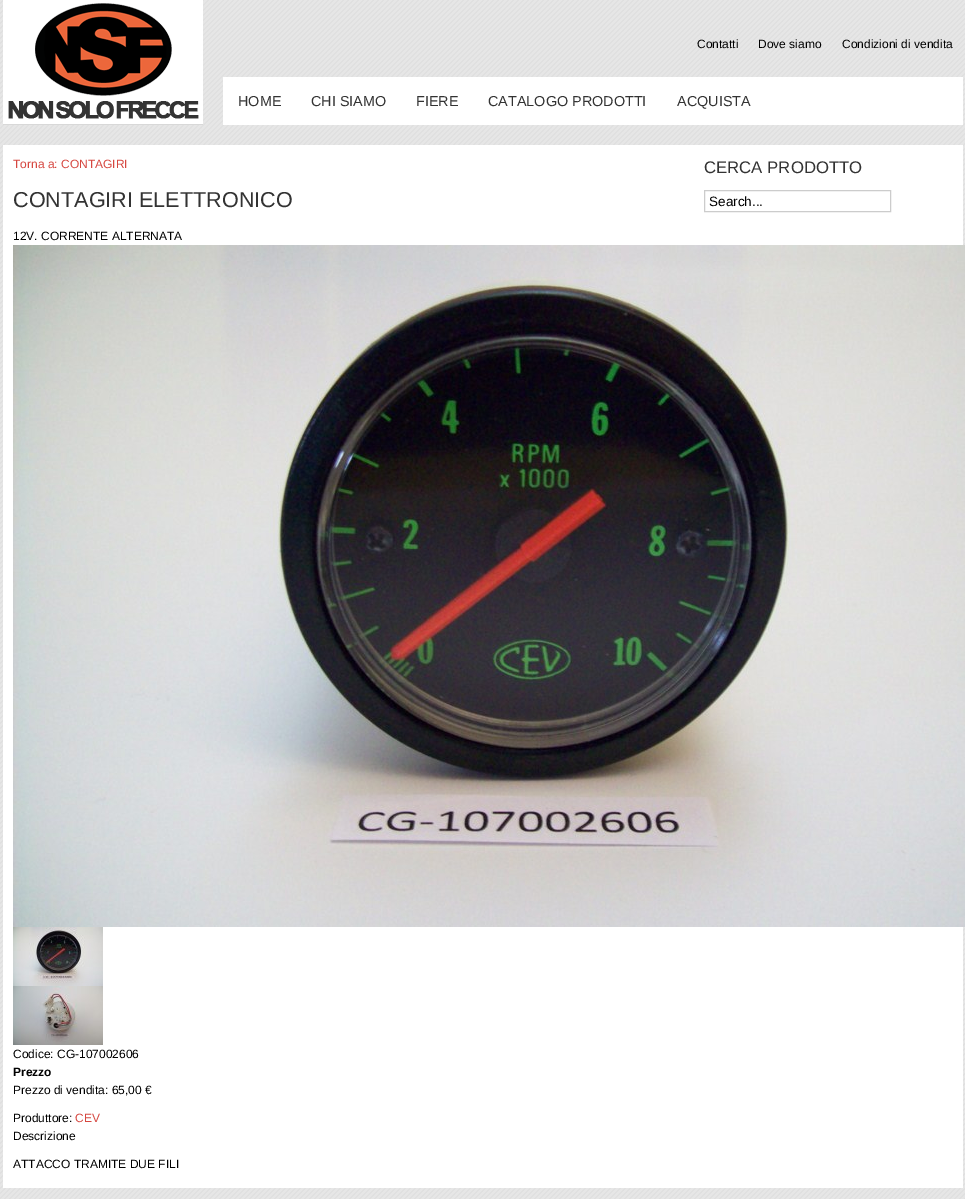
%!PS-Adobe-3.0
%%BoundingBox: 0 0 965 1199
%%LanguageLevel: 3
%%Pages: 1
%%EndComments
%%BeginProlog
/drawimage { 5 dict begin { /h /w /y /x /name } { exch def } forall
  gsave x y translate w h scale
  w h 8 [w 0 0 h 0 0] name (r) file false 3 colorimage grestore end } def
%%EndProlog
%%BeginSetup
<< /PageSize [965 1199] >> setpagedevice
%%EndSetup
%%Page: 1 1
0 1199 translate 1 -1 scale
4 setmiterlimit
1 setgray
0 0 965 1199 rectfill
(images/1.raw) 0 0 965 1199 drawimage
(images/2.raw) 3 0 200 125 drawimage
223 77 740 48 rectfill
3 145 960 1043 rectfill
(images/3.raw) 13 245 952 682 drawimage
(images/4.raw) 13 927 90 59 drawimage
(images/5.raw) 13 986 90 59 drawimage
0.8 setgray
704.5 190.5 186 21 rectstroke
/LiberationSans-Regular [12 0 0 -12 0 0] selectfont
0 setgray
697 48 moveto (Contatti) show
758 48 moveto (Dove siamo) show
842 48 moveto (Condizioni di vendita) show
/LiberationSans-Regular [14.4 0 0 -14.4 0 0] selectfont
0.2 setgray
238 106 moveto (HOME) show
311 106 moveto (CHI SIAMO) show
416 106 moveto (FIERE) show
488 106 moveto (CATALOGO PRODOTTI) show
677 106 moveto (ACQUISTA) show
/LiberationSans-Regular [12 0 0 -12 0 0] selectfont
0.839 0.278 0.251 setrgbcolor
13 168 moveto (Torna a: CONTAGIRI) show
/LiberationSans-Regular [21.6 0 0 -21.6 0 0] selectfont
0.2 setgray
13 207 moveto (CONTAGIRI ELETTRONICO) show
/LiberationSans-Regular [12 0 0 -12 0 0] selectfont
0 setgray
13 240 moveto (12V. CORRENTE ALTERNATA) show
13 1058 moveto (Codice: CG-107002606) show
/LiberationSans-Bold [12 0 0 -12 0 0] selectfont
13 1076 moveto (Prezzo) show
/LiberationSans-Regular [12 0 0 -12 0 0] selectfont
13 1094 moveto (Prezzo di vendita: 65,00 €) show
13 1122 moveto (Produttore:) show
0.839 0.278 0.251 setrgbcolor
75 1122 moveto (CEV) show
0 setgray
13 1140 moveto (Descrizione) show
13 1168 moveto (ATTACCO TRAMITE DUE FILI) show
/LiberationSans-Regular [16.75 0 0 -16.75 0 0] selectfont
0.2 setgray
704 173 moveto (CERCA PRODOTTO) show
/LiberationSans-Regular [13.5 0 0 -13.5 0 0] selectfont
0 setgray
709 206 moveto (Search...) show
showpage
%%EOF
